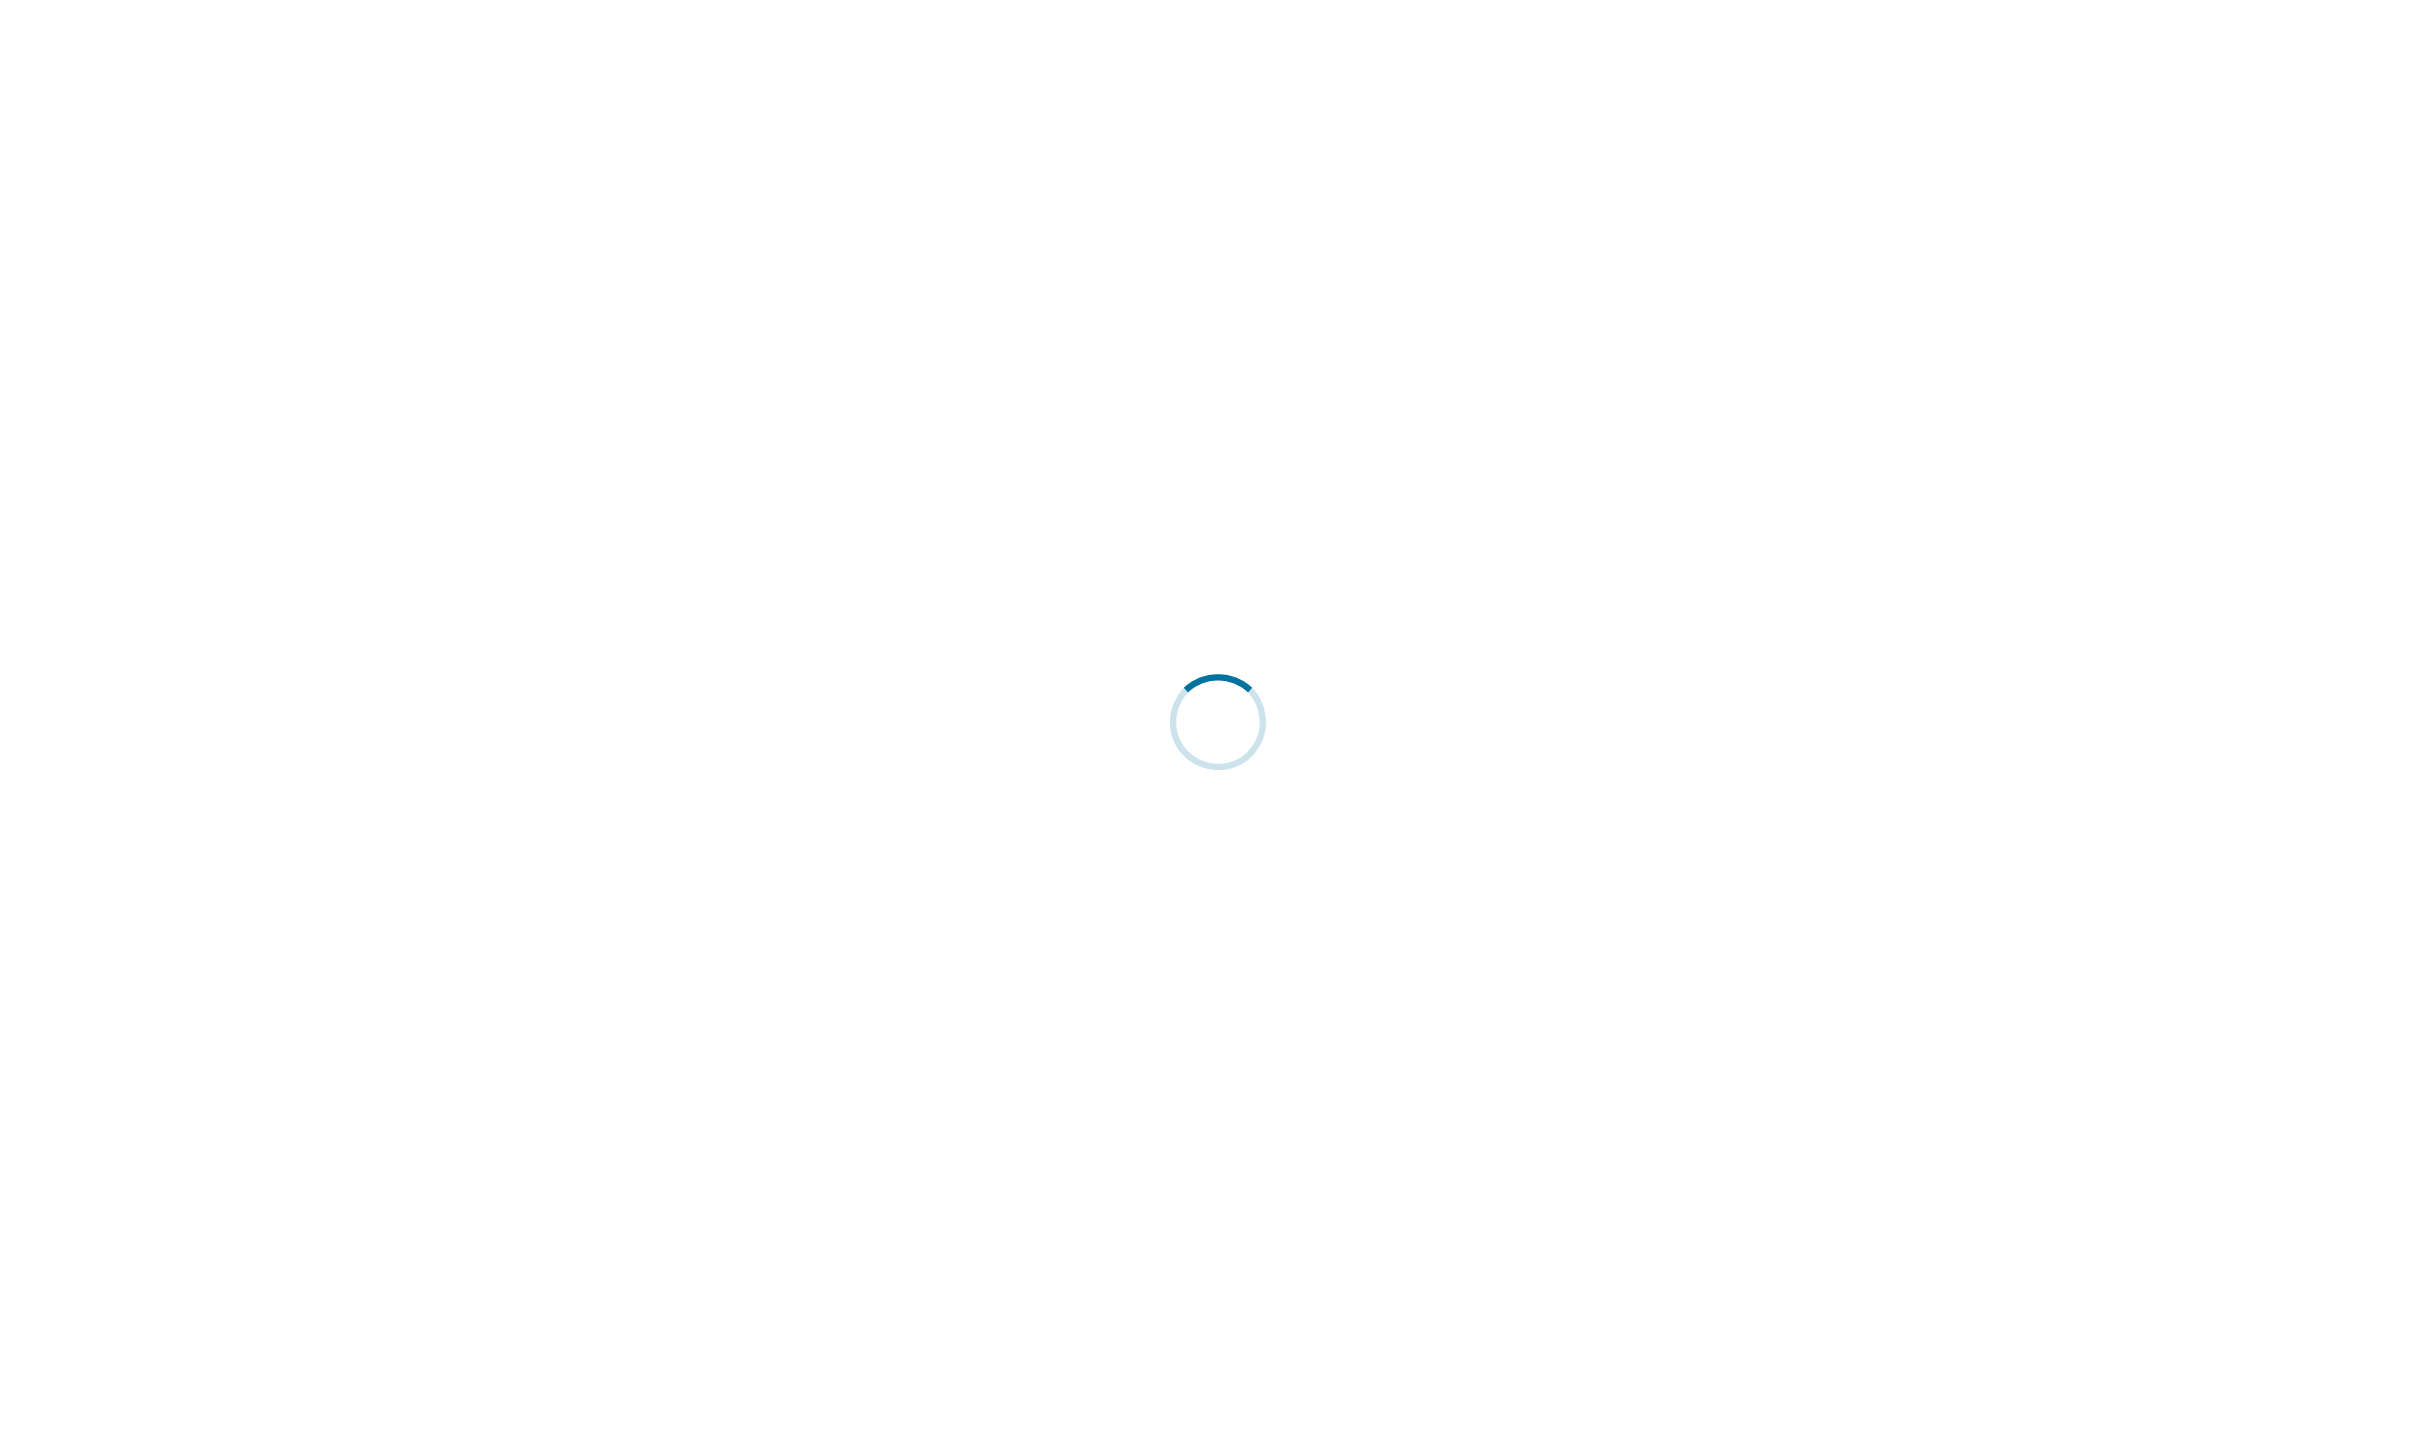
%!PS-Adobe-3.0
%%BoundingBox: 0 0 2435 1443
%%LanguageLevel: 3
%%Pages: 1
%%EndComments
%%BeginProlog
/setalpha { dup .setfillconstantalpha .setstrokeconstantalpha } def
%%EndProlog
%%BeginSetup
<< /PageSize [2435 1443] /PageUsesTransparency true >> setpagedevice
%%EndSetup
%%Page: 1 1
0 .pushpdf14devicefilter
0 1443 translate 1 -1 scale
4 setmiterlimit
1 setgray
0 0 2435 1443 rectfill
0 0.447 0.624 setrgbcolor
6 setlinewidth
newpath 1186 690 moveto 1203.5 673 1232.5 673 1250 690 curveto stroke
0.2 setalpha
newpath 1250 690 moveto 1260.5 700.5 1265 716 1262 731 curveto 1260.5 739.5 1256 747.5 1250 754 curveto 1221.5 782 1173 762 1173 722 curveto 1173 710 1178 698.5 1186 690 curveto stroke
.poppdf14devicefilter showpage
%%EOF
